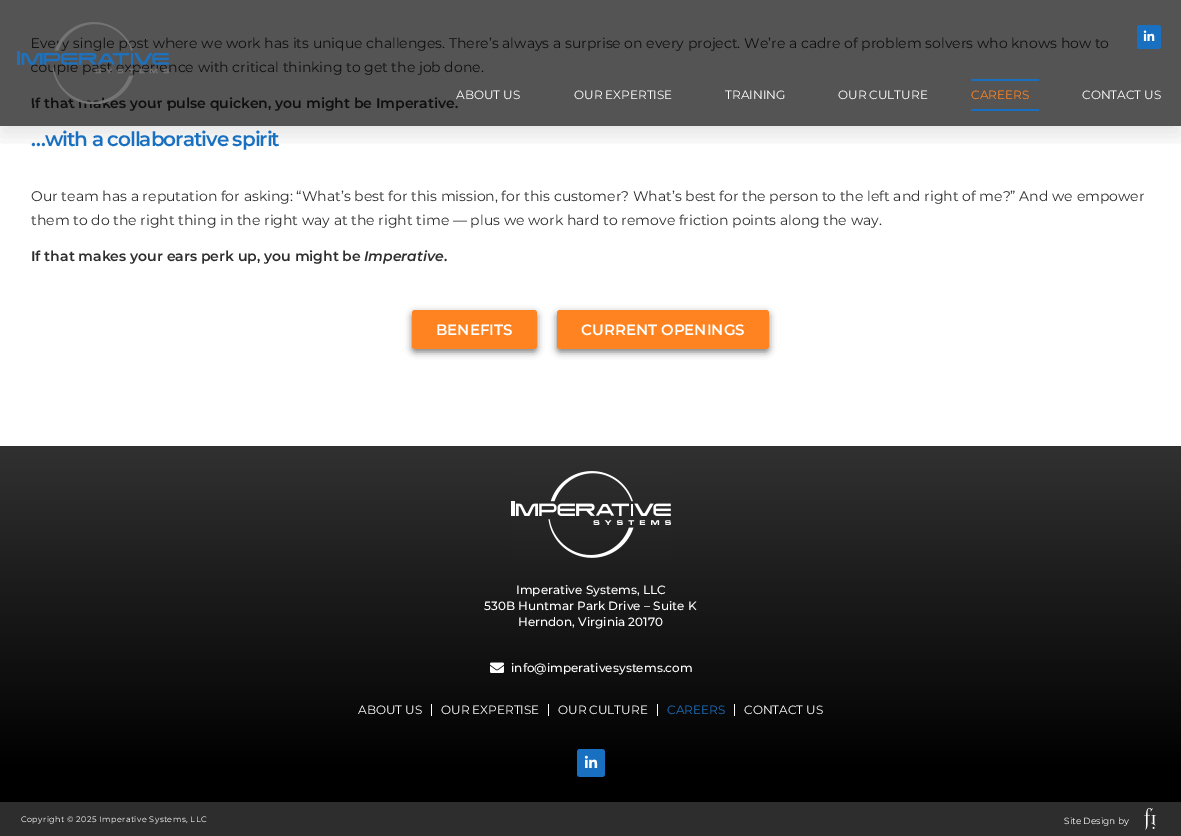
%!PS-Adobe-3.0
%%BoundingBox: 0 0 1181 836
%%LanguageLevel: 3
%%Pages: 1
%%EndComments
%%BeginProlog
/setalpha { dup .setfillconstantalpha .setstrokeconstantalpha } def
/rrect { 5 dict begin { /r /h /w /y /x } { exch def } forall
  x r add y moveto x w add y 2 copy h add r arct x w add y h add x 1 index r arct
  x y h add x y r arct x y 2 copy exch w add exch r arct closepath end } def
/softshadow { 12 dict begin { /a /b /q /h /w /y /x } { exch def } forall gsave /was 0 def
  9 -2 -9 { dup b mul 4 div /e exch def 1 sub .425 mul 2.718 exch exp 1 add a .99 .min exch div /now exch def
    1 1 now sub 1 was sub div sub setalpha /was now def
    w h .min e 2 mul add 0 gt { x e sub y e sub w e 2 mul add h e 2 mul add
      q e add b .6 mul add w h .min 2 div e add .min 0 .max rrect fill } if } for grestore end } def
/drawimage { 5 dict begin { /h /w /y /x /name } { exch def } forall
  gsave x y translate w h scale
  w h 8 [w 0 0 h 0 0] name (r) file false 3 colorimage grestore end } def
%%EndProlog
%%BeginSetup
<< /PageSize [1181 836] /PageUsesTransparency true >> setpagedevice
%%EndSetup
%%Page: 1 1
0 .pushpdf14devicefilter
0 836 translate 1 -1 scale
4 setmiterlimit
1 setgray
0 0 1181 836 rectfill
0.329 setgray
0 0 1181 126 rectfill
0 setgray
412 313 125 39 3 3.5 0.5 softshadow
1 0.514 0.125 setrgbcolor
412 310 125 39 3 rrect fill
0 setgray
557 313 212 39 3 3.5 0.5 softshadow
1 0.514 0.125 setrgbcolor
557 310 212 39 3 rrect fill
gsave
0 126 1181 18 rectclip
0 setgray
0 10 1181 126 0 10 0.1 softshadow
grestore
0.098 0.439 0.753 setrgbcolor
1137 25 24 24 2.5 rrect fill
(images/2.raw) 1143 30 12 11 drawimage
971 79 68 2 rectfill
971 109 68 2 rectfill
gsave newpath 0 446 moveto 1181 446 lineto 1181 802 lineto 0 802 lineto closepath clip newpath
<< /ShadingType 2 /ColorSpace /DeviceRGB /Coords [591 446 591 802] /Extend [true true] /Function << /FunctionType 3 /Domain [0 1] /Functions [<< /FunctionType 2 /Domain [0 1] /C0 [0.192 0.192 0.192] /C1 [0 0 0] /N 1 >> << /FunctionType 2 /Domain [0 1] /C0 [0 0 0] /C1 [0 0 0] /N 1 >>] /Bounds [0.91] /Encode [0 1 0 1] >> >> shfill grestore
(images/3.raw) 511 471 160 87 drawimage
(images/4.raw) 490 662 14 11 drawimage
1 setgray
431 704 1 12 rectfill
548 704 1 12 rectfill
657 704 1 12 rectfill
734 704 1 12 rectfill
0.098 0.439 0.753 setrgbcolor
577 749 28 28 3 rrect fill
(images/5.raw) 584 755 14 13 drawimage
0.176 setgray
0 802 1181 34 rectfill
(images/6.raw) 1144 808 12 22 drawimage
/Montserrat-Regular [14 0 0 -14 0 0] selectfont
0.059 setgray
31 48 moveto (Every single post where we work has its unique challenges. There’s always a surprise on every project. We’re a cadre of problem solvers who knows how to) show
31 72 moveto (couple past experience with critical thinking to get the job done.) show
/Montserrat-SemiBold [14 0 0 -14 0 0] selectfont
31 108 moveto (If that makes your pulse quicken, you might be Imperative.) show
/Montserrat-SemiBold [20 0 0 -20 0 0] selectfont
0.098 0.439 0.753 setrgbcolor
31 146 moveto -1 0 (…with a collaborative spirit) ashow
/Montserrat-Regular [14 0 0 -14 0 0] selectfont
0.176 setgray
31 201 moveto (Our team has a reputation for asking: “What’s best for this mission, for this customer? What’s best for the person to the left and right of me?” And we empower) show
31 225 moveto (them to do the right thing in the right way at the right time — plus we work hard to remove friction points along the way.) show
/Montserrat-SemiBold [14 0 0 -14 0 0] selectfont
31 261 moveto (If that makes your ears perk up, you might be) show
/Montserrat-SemiBoldItalic [14 0 0 -14 0 0] selectfont
364 261 moveto (Imperative) show
/Montserrat-SemiBold [14 0 0 -14 0 0] selectfont
444 261 moveto (.) show
/Montserrat-SemiBold [15 0 0 -15 0 0] selectfont
1 setgray
436 335 moveto (BENEFITS) show
581 335 moveto (CURRENT OPENINGS) show
(images/1.raw) 17 22 152 82 drawimage
/Montserrat-Regular [12 0 0 -12 0 0] selectfont
456 99 moveto (ABOUT US) show
574 99 moveto (OUR EXPERTISE) show
725 99 moveto (TRAINING) show
838 99 moveto (OUR CULTURE) show
1 0.514 0.125 setrgbcolor
971 99 moveto (CAREERS) show
1 setgray
1082 99 moveto (CONTACT US) show
/Montserrat-Medium [12 0 0 -12 0 0] selectfont
516 594 moveto (Imperative Systems, LLC) show
484 610 moveto (530B Huntmar Park Drive – Suite K) show
518 626 moveto (Herndon, Virginia 20170) show
511 672 moveto (info@imperativesystems.com) show
/Montserrat-Regular [12 0 0 -12 0 0] selectfont
358 714 moveto (ABOUT US) show
441 714 moveto (OUR EXPERTISE) show
558 714 moveto (OUR CULTURE) show
0.098 0.439 0.753 setrgbcolor
667 714 moveto (CAREERS) show
1 setgray
744 714 moveto (CONTACT US) show
/Montserrat-Regular [8 0 0 -8 0 0] selectfont
21 822 moveto 0.4 0 (Copyright © 2025 Imperative Systems, LLC) ashow
/Montserrat-Regular [9 0 0 -9 0 0] selectfont
1064 824 moveto (Site Design by) show
.poppdf14devicefilter showpage
%%EOF
